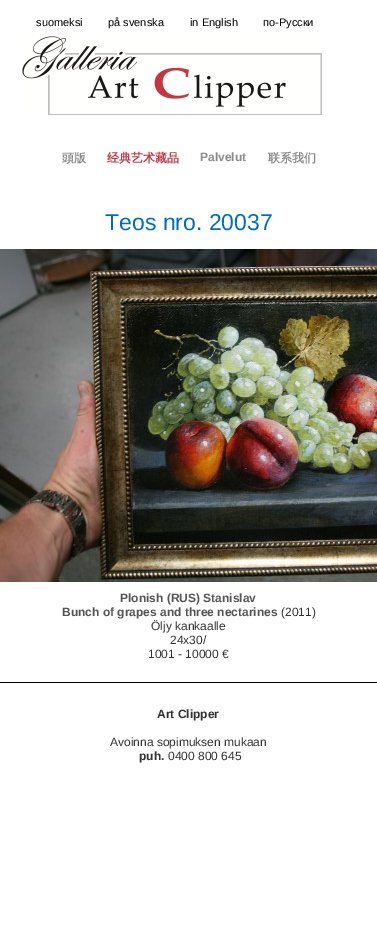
%!PS-Adobe-3.0
%%BoundingBox: 0 0 377 947
%%LanguageLevel: 3
%%Pages: 1
%%EndComments
%%BeginProlog
/drawimage { 5 dict begin { /h /w /y /x /name } { exch def } forall
  gsave x y translate w h scale
  w h 8 [w 0 0 h 0 0] name (r) file false 3 colorimage grestore end } def
%%EndProlog
%%BeginSetup
<< /PageSize [377 947] >> setpagedevice
%%EndSetup
%%Page: 1 1
0 947 translate 1 -1 scale
4 setmiterlimit
1 setgray
0 0 377 947 rectfill
(images/1.raw) 22 36 300 79 drawimage
(images/2.raw) 0 249 377 333 drawimage
0 setgray
0 682 377 1 rectfill
/LiberationSans-Regular [11 0 0 -11 0 0] selectfont
36 26 moveto (suomeksi) show
108 26 moveto (på svenska) show
190 26 moveto (in English) show
263 26 moveto (по-Русски) show
/WenQuanYiZenHei-Bold [12 0 0 -12 0 0] selectfont
0.541 setgray
62 162 moveto (頭版) show
0.773 0.208 0.263 setrgbcolor
107 162 moveto (经典艺术藏品) show
/LiberationSans-Bold [12 0 0 -12 0 0] selectfont
0.541 setgray
200 161 moveto (Palvelut) show
/WenQuanYiZenHei-Bold [12 0 0 -12 0 0] selectfont
268 162 moveto (联系我们) show
/LiberationSans-Regular [23 0 0 -23 0 0] selectfont
0 0.435 0.733 setrgbcolor
105 230 moveto (Teos nro. 20037) show
/LiberationSans-Bold [12 0 0 -12 0 0] selectfont
0.333 setgray
120 602 moveto (Plonish \(RUS\) Stanislav) show
62 616 moveto (Bunch of grapes and three nectarines) show
/LiberationSans-Regular [12 0 0 -12 0 0] selectfont
0.2 setgray
281 616 moveto (\(2011\)) show
151 630 moveto (Öljy kankaalle) show
170 644 moveto (24x30/) show
148 658 moveto (1001 - 10000 €) show
/LiberationSans-Bold [12 0 0 -12 0 0] selectfont
157 718 moveto (Art Clipper) show
/LiberationSans-Regular [12 0 0 -12 0 0] selectfont
110 746 moveto (Avoinna sopimuksen mukaan) show
/LiberationSans-Bold [12 0 0 -12 0 0] selectfont
139 760 moveto (puh.) show
/LiberationSans-Regular [12 0 0 -12 0 0] selectfont
168 760 moveto (0400 800 645) show
showpage
%%EOF
